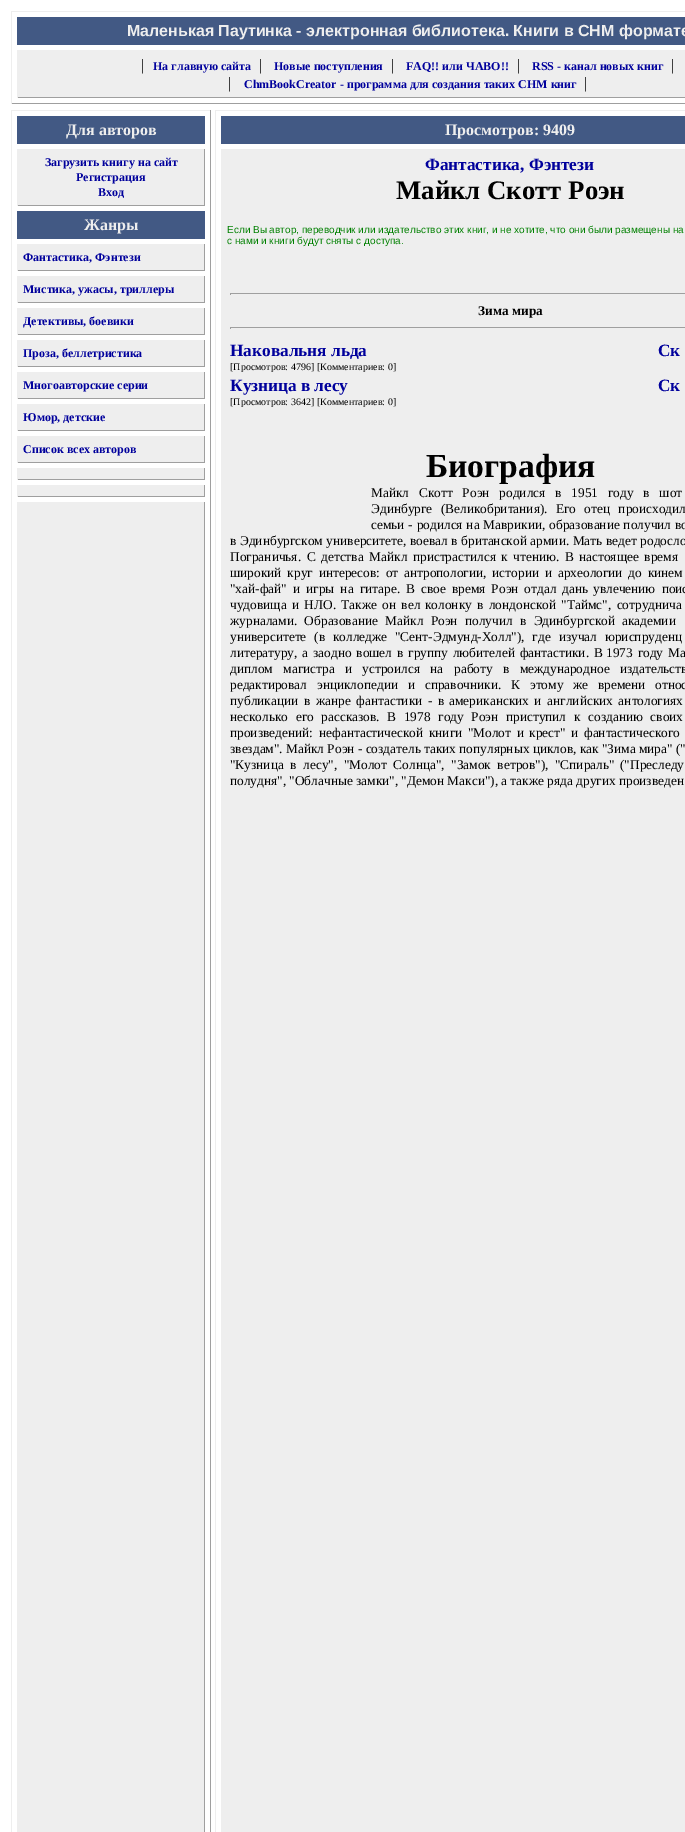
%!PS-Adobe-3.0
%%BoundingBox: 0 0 685 1832
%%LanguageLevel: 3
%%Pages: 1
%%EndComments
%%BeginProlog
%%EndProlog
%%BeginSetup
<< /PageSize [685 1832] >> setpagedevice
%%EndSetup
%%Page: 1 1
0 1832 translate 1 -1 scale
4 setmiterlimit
1 setgray
0 0 685 1832 rectfill
0.933 setgray
11 11 674 1 rectfill
0.624 setgray
11 103 674 1 rectfill
0.933 setgray
11 11 1 93 rectfill
0.259 0.349 0.518 setrgbcolor
17 17 668 28 rectfill
0.933 setgray
18 50 667 47 rectfill
0.624 setgray
17 97 668 1 rectfill
0.933 setgray
17 50 1 48 rectfill
11 110 200 1 rectfill
0.624 setgray
210 110 1 1722 rectfill
0.933 setgray
11 110 1 1722 rectfill
0.259 0.349 0.518 setrgbcolor
17 116 188 28 rectfill
0.933 setgray
18 149 186 56 rectfill
0.624 setgray
204 149 1 57 rectfill
17 205 188 1 rectfill
0.933 setgray
17 149 1 57 rectfill
0.259 0.349 0.518 setrgbcolor
17 211 188 28 rectfill
0.933 setgray
18 244 186 26 rectfill
0.624 setgray
204 244 1 27 rectfill
17 270 188 1 rectfill
0.933 setgray
17 244 1 27 rectfill
18 276 186 26 rectfill
0.624 setgray
204 276 1 27 rectfill
17 302 188 1 rectfill
0.933 setgray
17 276 1 27 rectfill
18 308 186 26 rectfill
0.624 setgray
204 308 1 27 rectfill
17 334 188 1 rectfill
0.933 setgray
17 308 1 27 rectfill
18 340 186 26 rectfill
0.624 setgray
204 340 1 27 rectfill
17 366 188 1 rectfill
0.933 setgray
17 340 1 27 rectfill
18 372 186 26 rectfill
0.624 setgray
204 372 1 27 rectfill
17 398 188 1 rectfill
0.933 setgray
17 372 1 27 rectfill
18 404 186 26 rectfill
0.624 setgray
204 404 1 27 rectfill
17 430 188 1 rectfill
0.933 setgray
17 404 1 27 rectfill
18 436 186 26 rectfill
0.624 setgray
204 436 1 27 rectfill
17 462 188 1 rectfill
0.933 setgray
17 436 1 27 rectfill
18 468 186 11 rectfill
0.624 setgray
204 468 1 12 rectfill
17 479 188 1 rectfill
0.933 setgray
17 468 1 12 rectfill
18 485 186 11 rectfill
0.624 setgray
204 485 1 12 rectfill
17 496 188 1 rectfill
0.933 setgray
17 485 1 12 rectfill
17 502 187 1330 rectfill
0.624 setgray
204 502 1 1330 rectfill
0.933 setgray
215 110 470 1 rectfill
215 110 1 1722 rectfill
0.259 0.349 0.518 setrgbcolor
221 116 464 28 rectfill
0.933 setgray
221 149 464 1683 rectfill
0.624 setgray
230 293 455 1 rectfill
230 293 1 2 rectfill
230 327 455 1 rectfill
230 327 1 2 rectfill
/LiberationSans-Bold [16 0 0 -16 0 0] selectfont
0.933 setgray
127 36 moveto (Маленькая Паутинка - электронная библиотека. Книги в CHM формате) show
/LiberationSerif-Regular [16 0 0 -16 0 0] selectfont
0 setgray
141 70 moveto (|) show
/LiberationSerif-Bold [12 0 0 -12 0 0] selectfont
0 0 0.612 setrgbcolor
153 70 moveto (На главную сайта) show
/LiberationSerif-Regular [16 0 0 -16 0 0] selectfont
0 setgray
259 70 moveto (|) show
/LiberationSerif-Bold [12 0 0 -12 0 0] selectfont
0 0 0.612 setrgbcolor
274 70 moveto (Новые поступления) show
/LiberationSerif-Regular [16 0 0 -16 0 0] selectfont
0 setgray
391 70 moveto (|) show
/LiberationSerif-Bold [12 0 0 -12 0 0] selectfont
0 0 0.612 setrgbcolor
406 70 moveto (FAQ!! или ЧАВО!!) show
/LiberationSerif-Regular [16 0 0 -16 0 0] selectfont
0 setgray
517 70 moveto (|) show
/LiberationSerif-Bold [12 0 0 -12 0 0] selectfont
0 0 0.612 setrgbcolor
532 70 moveto (RSS - канал новых книг) show
/LiberationSerif-Regular [16 0 0 -16 0 0] selectfont
0 setgray
671 70 moveto (|) show
228 88 moveto (|) show
/LiberationSerif-Bold [12 0 0 -12 0 0] selectfont
0 0 0.612 setrgbcolor
244 88 moveto (ChmBookCreator - программа для создания таких CHM книг) show
/LiberationSerif-Regular [16 0 0 -16 0 0] selectfont
0 setgray
584 88 moveto (|) show
/LiberationSerif-Bold [16 0 0 -16 0 0] selectfont
0.933 setgray
66 135 moveto (Для авторов) show
/LiberationSerif-Bold [12 0 0 -12 0 0] selectfont
0 0 0.612 setrgbcolor
45 166 moveto (Загрузить книгу на сайт) show
76 181 moveto (Регистрация) show
98 196 moveto (Вход) show
/LiberationSerif-Bold [16 0 0 -16 0 0] selectfont
0.933 setgray
84 230 moveto (Жанры) show
/LiberationSerif-Bold [12 0 0 -12 0 0] selectfont
0 0 0.612 setrgbcolor
23 261 moveto (Фантастика, Фэнтези) show
23 293 moveto (Мистика, ужасы, триллеры) show
23 325 moveto (Детективы, боевики) show
23 357 moveto (Проза, беллетристика) show
23 389 moveto (Многоавторские серии) show
23 421 moveto (Юмор, детские) show
23 453 moveto (Список всех авторов) show
/LiberationSerif-Bold [16 0 0 -16 0 0] selectfont
0.933 setgray
445 135 moveto (Просмотров: 9409) show
/LiberationSerif-Bold [17.25 0 0 -17.25 0 0] selectfont
0 0 0.612 setrgbcolor
425 170 moveto (Фантастика, Фэнтези) show
/LiberationSerif-Bold [26.75 0 0 -26.75 0 0] selectfont
0 setgray
396 199 moveto (Майкл Скотт Роэн) show
/LiberationSans-Regular [10 0 0 -10 0 0] selectfont
0 0.502 0 setrgbcolor
227 233 moveto (Если Вы автор, переводчик или издательство этих книг, и не хотите, что они были размещены на) show
227 244 moveto (с нами и книги будут сняты с доступа.) show
/LiberationSerif-Bold [13.35 0 0 -13.35 0 0] selectfont
0 setgray
478 315 moveto (Зима мира) show
/LiberationSerif-Bold [17.25 0 0 -17.25 0 0] selectfont
0 0 0.612 setrgbcolor
230 356 moveto (Наковальня льда) show
/LiberationSerif-Regular [10 0 0 -10 0 0] selectfont
0 setgray
230 370 moveto ([Просмотров: 4796] [Комментариев: 0]) show
/LiberationSerif-Bold [17.25 0 0 -17.25 0 0] selectfont
0 0 0.612 setrgbcolor
658 356 moveto (Ск) show
230 391 moveto (Кузница в лесу) show
/LiberationSerif-Regular [10 0 0 -10 0 0] selectfont
0 setgray
230 405 moveto ([Просмотров: 3642] [Комментариев: 0]) show
/LiberationSerif-Bold [17.25 0 0 -17.25 0 0] selectfont
0 0 0.612 setrgbcolor
658 391 moveto (Ск) show
/LiberationSerif-Bold [33.5 0 0 -33.5 0 0] selectfont
0 setgray
426 477 moveto (Биография) show
/LiberationSerif-Regular [13.35 0 0 -13.35 0 0] selectfont
371 497 moveto 6.5 0 32 (Майкл Скотт Роэн родился в 1951 году в шот) widthshow
371 513 moveto 5 0 32 (Эдинбурге \(Великобритания\). Его отец происходил) widthshow
371 529 moveto 0.5 0 32 (семьи - родился на Маврикии, образование получил) widthshow
675 529 moveto 1 0 32 (во) widthshow
230 545 moveto 0.25 0 32 (в Эдинбургском университете, воевал в британской армии. Мать ведет родосло) widthshow
230 561 moveto 2.25 0 32 (Пограничья. С детства Майкл пристрастился к чтению. В) widthshow
579 561 moveto 2.25 0 32 (настоящее время) widthshow
230 577 moveto 2.5 0 32 (широкий круг интересов: от) widthshow
404 577 moveto 2.5 0 32 (антропологии, истории и археологии до кинем) widthshow
230 593 moveto 2.75 0 32 ("хай-фай" и игры на гитаре. В свое время Роэн отдал дань) widthshow
593 593 moveto 2.75 0 32 (увлечению поис) widthshow
230 609 moveto 2 0 32 (чудовища и НЛО. Также он вел) widthshow
425 609 moveto 2 0 32 (колонку в лондонской "Таймс", сотруднича) widthshow
230 625 moveto 4 0 32 (журналами. Образование Майкл Роэн получил в Эдинбургской) widthshow
622 625 moveto 4 0 32 (академии) widthshow
230 641 moveto 4.5 0 32 (университете \(в колледже) widthshow
395 641 moveto 4.5 0 32 ("Сент-Эдмунд-Холл"\), где изучал юриспруденц) widthshow
230 657 moveto 1.5 0 32 (литературу, а заодно вошел в группу любителей фантастики. В) widthshow
606 657 moveto 1.5 0 32 (1973 году Ма) widthshow
230 673 moveto 7 0 32 (диплом магистра и устроился на) widthshow
454 673 moveto 7 0 32 (работу в международное издательств) widthshow
230 689 moveto 6.5 0 32 (редактировал энциклопедии и справочники. К этому же времени) widthshow
655 689 moveto 6.5 0 32 (относ) widthshow
230 705 moveto 2.25 0 32 (публикации в жанре фантастики - в) widthshow
449 705 moveto 2.25 0 32 (американских и английских антологиях) widthshow
230 721 moveto 4.25 0 32 (несколько его рассказов. В 1978 году Роэн приступил к) widthshow
588 721 moveto 4.25 0 32 (созданию своих) widthshow
230 737 moveto (произведений:) show
319 737 moveto 2.25 0 32 (нефантастической книги "Молот и крест" и фантастического) widthshow
230 753 moveto (звездам". Майкл Роэн - создатель таких популярных циклов, как "Зима мира" \(") show
230 769 moveto 3.25 0 32 ("Кузница в лесу", "Молот Солнца", "Замок ветров"\), "Спираль") widthshow
620 769 moveto 3.25 0 32 (\("Преследу) widthshow
230 785 moveto (полудня", "Облачные замки", "Демон Макси"\), а также ряда других произведен) show
showpage
%%EOF
